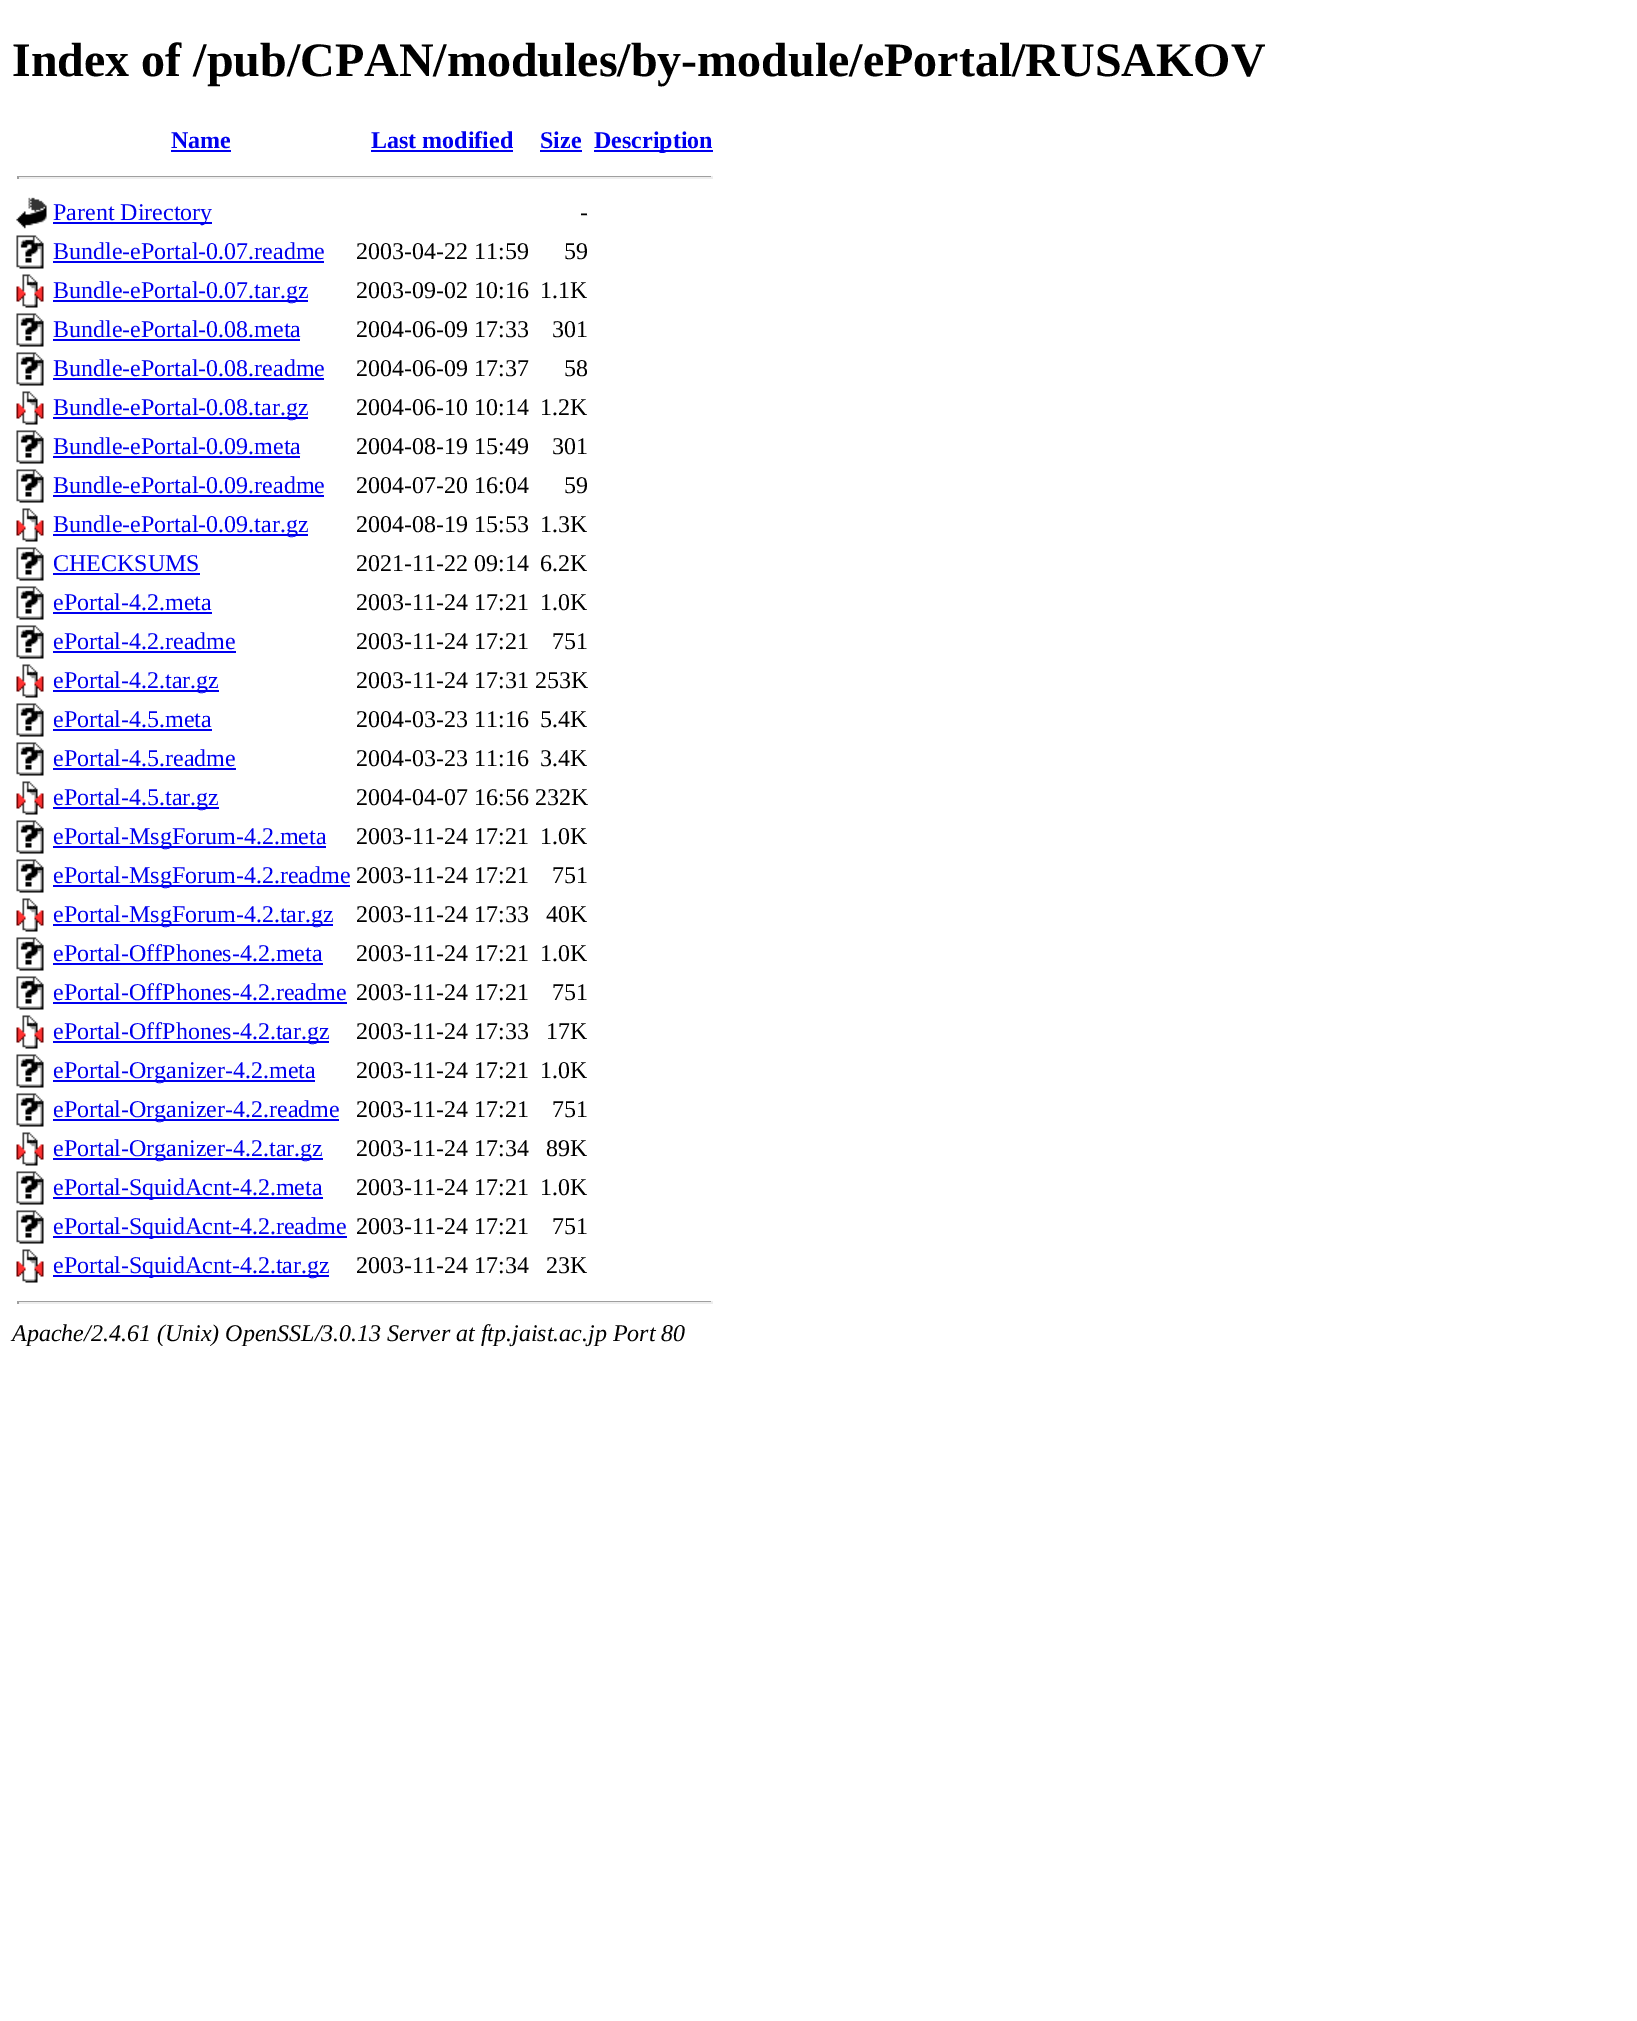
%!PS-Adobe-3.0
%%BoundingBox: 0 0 1637 2021
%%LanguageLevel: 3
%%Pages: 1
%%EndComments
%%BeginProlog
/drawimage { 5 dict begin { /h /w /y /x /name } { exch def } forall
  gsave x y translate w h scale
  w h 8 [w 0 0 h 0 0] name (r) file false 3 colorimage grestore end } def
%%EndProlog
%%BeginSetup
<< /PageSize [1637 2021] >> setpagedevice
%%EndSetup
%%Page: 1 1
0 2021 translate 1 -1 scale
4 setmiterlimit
1 setgray
0 0 1637 2021 rectfill
0 0 0.933 setrgbcolor
171 150 60 2 rectfill
371 150 142 2 rectfill
540 150 42 2 rectfill
594 150 119 2 rectfill
0.624 setgray
17 176 696 1 rectfill
0.933 setgray
711 176 2 3 rectfill
17 177 696 2 rectfill
0.624 setgray
17 176 2 3 rectfill
(images/1.raw) 16 197 31 32 drawimage
0 0 0.933 setrgbcolor
53 222 159 2 rectfill
(images/2.raw) 16 235 28 34 drawimage
53 261 271 2 rectfill
(images/3.raw) 16 274 28 34 drawimage
53 300 255 2 rectfill
(images/2.raw) 16 313 28 34 drawimage
53 339 247 2 rectfill
(images/2.raw) 16 352 28 34 drawimage
53 378 271 2 rectfill
(images/3.raw) 16 391 28 34 drawimage
53 417 255 2 rectfill
(images/2.raw) 16 430 28 34 drawimage
53 456 247 2 rectfill
(images/2.raw) 16 469 28 34 drawimage
53 495 271 2 rectfill
(images/3.raw) 16 508 28 34 drawimage
53 534 255 2 rectfill
(images/2.raw) 16 547 28 34 drawimage
53 573 147 2 rectfill
(images/2.raw) 16 586 28 34 drawimage
53 612 159 2 rectfill
(images/2.raw) 16 625 28 34 drawimage
53 651 183 2 rectfill
(images/3.raw) 16 664 28 34 drawimage
53 690 166 2 rectfill
(images/2.raw) 16 703 28 34 drawimage
53 729 159 2 rectfill
(images/2.raw) 16 742 28 34 drawimage
53 768 183 2 rectfill
(images/3.raw) 16 781 28 34 drawimage
53 807 166 2 rectfill
(images/2.raw) 16 820 28 34 drawimage
53 846 273 2 rectfill
(images/2.raw) 16 859 28 34 drawimage
53 885 297 2 rectfill
(images/3.raw) 16 898 28 34 drawimage
53 924 280 2 rectfill
(images/2.raw) 16 937 28 34 drawimage
53 963 270 2 rectfill
(images/2.raw) 16 976 28 34 drawimage
53 1002 294 2 rectfill
(images/3.raw) 16 1015 28 34 drawimage
53 1041 276 2 rectfill
(images/2.raw) 16 1054 28 34 drawimage
53 1080 262 2 rectfill
(images/2.raw) 16 1093 28 34 drawimage
53 1119 286 2 rectfill
(images/3.raw) 16 1132 28 34 drawimage
53 1158 270 2 rectfill
(images/2.raw) 16 1171 28 34 drawimage
53 1197 270 2 rectfill
(images/2.raw) 16 1210 28 34 drawimage
53 1236 294 2 rectfill
(images/3.raw) 16 1249 28 34 drawimage
53 1275 276 2 rectfill
0.624 setgray
17 1301 696 1 rectfill
0.933 setgray
711 1301 2 3 rectfill
17 1302 696 2 rectfill
0.624 setgray
17 1301 2 3 rectfill
/LiberationSerif-Bold [48 0 0 -48 0 0] selectfont
0 setgray
12 76 moveto (Index of /pub/CPAN/modules/by-module/ePortal/RUSAKOV) show
/LiberationSerif-Bold [24 0 0 -24 0 0] selectfont
0 0 0.933 setrgbcolor
171 148 moveto (Name) show
371 148 moveto (Last modified) show
540 148 moveto (Size) show
594 148 moveto (Description) show
/LiberationSerif-Regular [24 0 0 -24 0 0] selectfont
53 220 moveto (Parent Directory) show
0 setgray
580 220 moveto (-) show
0 0 0.933 setrgbcolor
53 259 moveto (Bundle-ePortal-0.07.readme) show
0 setgray
356 259 moveto (2003-04-22 11:59) show
564 259 moveto (59) show
0 0 0.933 setrgbcolor
53 298 moveto (Bundle-ePortal-0.07.tar.gz) show
0 setgray
356 298 moveto (2003-09-02 10:16) show
540 298 moveto (1.1K) show
0 0 0.933 setrgbcolor
53 337 moveto (Bundle-ePortal-0.08.meta) show
0 setgray
356 337 moveto (2004-06-09 17:33) show
552 337 moveto (301) show
0 0 0.933 setrgbcolor
53 376 moveto (Bundle-ePortal-0.08.readme) show
0 setgray
356 376 moveto (2004-06-09 17:37) show
564 376 moveto (58) show
0 0 0.933 setrgbcolor
53 415 moveto (Bundle-ePortal-0.08.tar.gz) show
0 setgray
356 415 moveto (2004-06-10 10:14) show
540 415 moveto (1.2K) show
0 0 0.933 setrgbcolor
53 454 moveto (Bundle-ePortal-0.09.meta) show
0 setgray
356 454 moveto (2004-08-19 15:49) show
552 454 moveto (301) show
0 0 0.933 setrgbcolor
53 493 moveto (Bundle-ePortal-0.09.readme) show
0 setgray
356 493 moveto (2004-07-20 16:04) show
564 493 moveto (59) show
0 0 0.933 setrgbcolor
53 532 moveto (Bundle-ePortal-0.09.tar.gz) show
0 setgray
356 532 moveto (2004-08-19 15:53) show
540 532 moveto (1.3K) show
0 0 0.933 setrgbcolor
53 571 moveto (CHECKSUMS) show
0 setgray
356 571 moveto (2021-11-22 09:14) show
540 571 moveto (6.2K) show
0 0 0.933 setrgbcolor
53 610 moveto (ePortal-4.2.meta) show
0 setgray
356 610 moveto (2003-11-24 17:21) show
540 610 moveto (1.0K) show
0 0 0.933 setrgbcolor
53 649 moveto (ePortal-4.2.readme) show
0 setgray
356 649 moveto (2003-11-24 17:21) show
552 649 moveto (751) show
0 0 0.933 setrgbcolor
53 688 moveto (ePortal-4.2.tar.gz) show
0 setgray
356 688 moveto (2003-11-24 17:31 253K) show
0 0 0.933 setrgbcolor
53 727 moveto (ePortal-4.5.meta) show
0 setgray
356 727 moveto (2004-03-23 11:16) show
540 727 moveto (5.4K) show
0 0 0.933 setrgbcolor
53 766 moveto (ePortal-4.5.readme) show
0 setgray
356 766 moveto (2004-03-23 11:16) show
540 766 moveto (3.4K) show
0 0 0.933 setrgbcolor
53 805 moveto (ePortal-4.5.tar.gz) show
0 setgray
356 805 moveto (2004-04-07 16:56 232K) show
0 0 0.933 setrgbcolor
53 844 moveto (ePortal-MsgForum-4.2.meta) show
0 setgray
356 844 moveto (2003-11-24 17:21) show
540 844 moveto (1.0K) show
0 0 0.933 setrgbcolor
53 883 moveto (ePortal-MsgForum-4.2.readme) show
0 setgray
356 883 moveto (2003-11-24 17:21) show
552 883 moveto (751) show
0 0 0.933 setrgbcolor
53 922 moveto (ePortal-MsgForum-4.2.tar.gz) show
0 setgray
356 922 moveto (2003-11-24 17:33) show
546 922 moveto (40K) show
0 0 0.933 setrgbcolor
53 961 moveto (ePortal-OffPhones-4.2.meta) show
0 setgray
356 961 moveto (2003-11-24 17:21) show
540 961 moveto (1.0K) show
0 0 0.933 setrgbcolor
53 1000 moveto (ePortal-OffPhones-4.2.readme) show
0 setgray
356 1000 moveto (2003-11-24 17:21) show
552 1000 moveto (751) show
0 0 0.933 setrgbcolor
53 1039 moveto (ePortal-OffPhones-4.2.tar.gz) show
0 setgray
356 1039 moveto (2003-11-24 17:33) show
546 1039 moveto (17K) show
0 0 0.933 setrgbcolor
53 1078 moveto (ePortal-Organizer-4.2.meta) show
0 setgray
356 1078 moveto (2003-11-24 17:21) show
540 1078 moveto (1.0K) show
0 0 0.933 setrgbcolor
53 1117 moveto (ePortal-Organizer-4.2.readme) show
0 setgray
356 1117 moveto (2003-11-24 17:21) show
552 1117 moveto (751) show
0 0 0.933 setrgbcolor
53 1156 moveto (ePortal-Organizer-4.2.tar.gz) show
0 setgray
356 1156 moveto (2003-11-24 17:34) show
546 1156 moveto (89K) show
0 0 0.933 setrgbcolor
53 1195 moveto (ePortal-SquidAcnt-4.2.meta) show
0 setgray
356 1195 moveto (2003-11-24 17:21) show
540 1195 moveto (1.0K) show
0 0 0.933 setrgbcolor
53 1234 moveto (ePortal-SquidAcnt-4.2.readme) show
0 setgray
356 1234 moveto (2003-11-24 17:21) show
552 1234 moveto (751) show
0 0 0.933 setrgbcolor
53 1273 moveto (ePortal-SquidAcnt-4.2.tar.gz) show
0 setgray
356 1273 moveto (2003-11-24 17:34) show
546 1273 moveto (23K) show
/LiberationSerif-Italic [24 0 0 -24 0 0] selectfont
12 1341 moveto (Apache/2.4.61 \(Unix\) OpenSSL/3.0.13 Server at ftp.jaist.ac.jp Port 80) show
showpage
%%EOF
